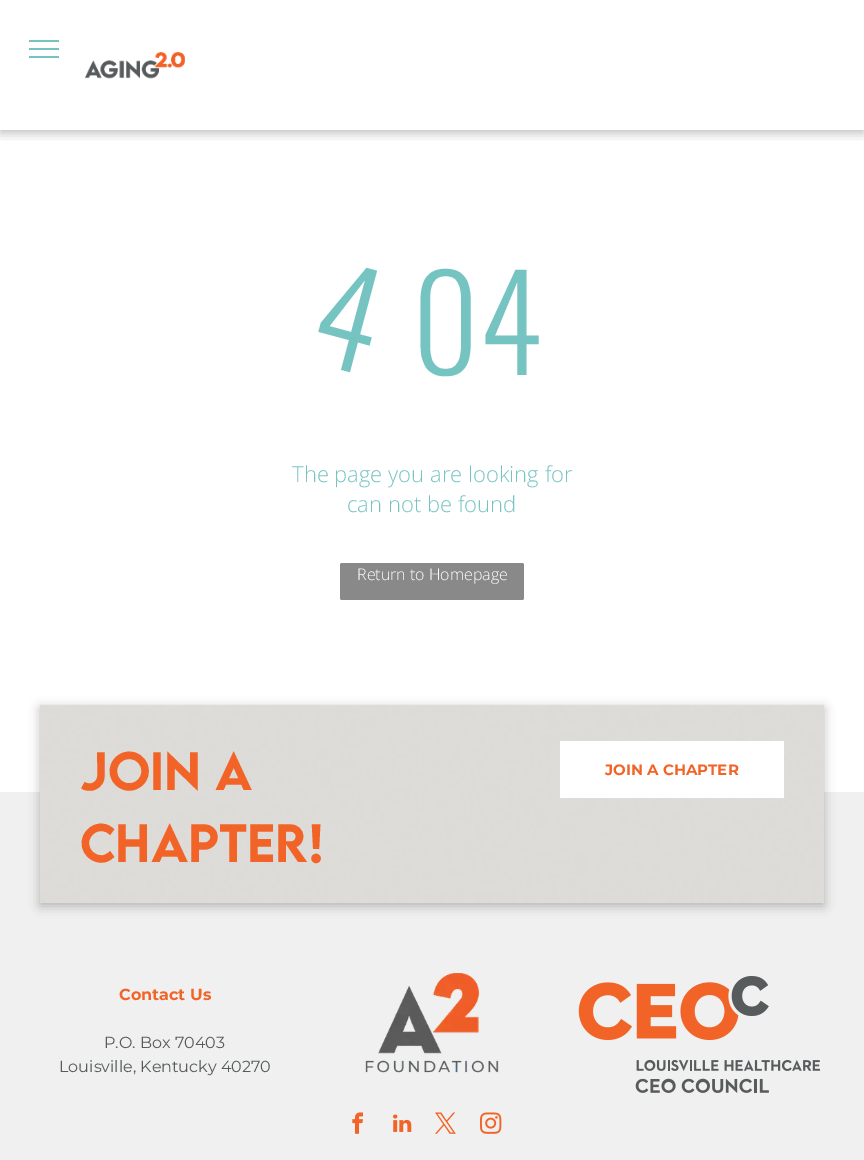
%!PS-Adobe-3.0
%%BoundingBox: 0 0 864 1160
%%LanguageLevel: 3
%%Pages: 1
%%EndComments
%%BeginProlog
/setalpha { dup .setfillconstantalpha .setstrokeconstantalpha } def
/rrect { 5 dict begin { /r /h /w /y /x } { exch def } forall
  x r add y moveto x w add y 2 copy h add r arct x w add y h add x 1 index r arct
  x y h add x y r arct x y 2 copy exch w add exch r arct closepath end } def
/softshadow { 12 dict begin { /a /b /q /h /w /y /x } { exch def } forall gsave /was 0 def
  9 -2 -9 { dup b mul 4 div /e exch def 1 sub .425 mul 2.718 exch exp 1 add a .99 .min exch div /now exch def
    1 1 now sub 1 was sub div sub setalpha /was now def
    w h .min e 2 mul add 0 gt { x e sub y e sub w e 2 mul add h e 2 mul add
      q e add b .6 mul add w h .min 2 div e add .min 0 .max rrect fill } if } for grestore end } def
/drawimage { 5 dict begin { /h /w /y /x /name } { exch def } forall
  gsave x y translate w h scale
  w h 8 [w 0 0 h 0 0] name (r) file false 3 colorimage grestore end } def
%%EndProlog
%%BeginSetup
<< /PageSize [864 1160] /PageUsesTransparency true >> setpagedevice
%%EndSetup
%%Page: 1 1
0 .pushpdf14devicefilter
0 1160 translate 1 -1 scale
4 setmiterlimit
1 setgray
0 0 864 1160 rectfill
gsave
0 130 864 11 rectclip
0 setgray
0 3 864 130 0 5.5 0.25 softshadow
grestore
(images/1.raw) 85 51 100 28 drawimage
0.463 0.769 0.761 setrgbcolor
29 40 30 2 rectfill
29 48 30 2 rectfill
29 56 30 2 rectfill
0.537 setgray
340 563 184 37 2 rrect fill
0.941 setgray
0 792 864 368 rectfill
0 setgray
40 708 784 198 0 5.5 0.25 softshadow
(images/2.raw) 40 705 784 198 drawimage
1 setgray
560 741 224 57 rectfill
(images/3.raw) 365 973 134 100 drawimage
(images/4.raw) 352 1112 11 22 drawimage
(images/5.raw) 393 1114 19 18 drawimage
(images/6.raw) 435 1112 21 22 drawimage
(images/7.raw) 480 1112 22 22 drawimage
(images/8.raw) 578 976 242 117 drawimage
/Oswald-Light [130 0 0 -130 0 0] selectfont
0.463 0.769 0.761 setrgbcolor
gsave 304 360 translate 15 rotate 0 0 moveto (4) show grestore
412 375 moveto (04) show
/OpenSans-Light [22 0 0 -22 0 0] selectfont
292 482 moveto (The page you are looking for) show
347 512 moveto (can not be found) show
/OpenSans-Light [16 0 0 -16 0 0] selectfont
1 setgray
357 580 moveto (Return to Homepage) show
/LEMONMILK-Medium [48 0 0 -48 0 0] selectfont
0.949 0.388 0.153 setrgbcolor
80 790 moveto (JOIN A) show
80 862 moveto (CHAPTER!) show
/Montserrat-Bold [15 0 0 -15 0 0] selectfont
605 775 moveto (JOIN A CHAPTER) show
/Montserrat-Bold [16 0 0 -16 0 0] selectfont
119 1000 moveto (Contact) show
190 1000 moveto (Us) show
/Montserrat-Regular [16 0 0 -16 0 0] selectfont
0.341 0.357 0.361 setrgbcolor
104 1048 moveto (P.O. Box 70403) show
59 1072 moveto (Louisville, Kentucky 40270) show
.poppdf14devicefilter showpage
%%EOF
